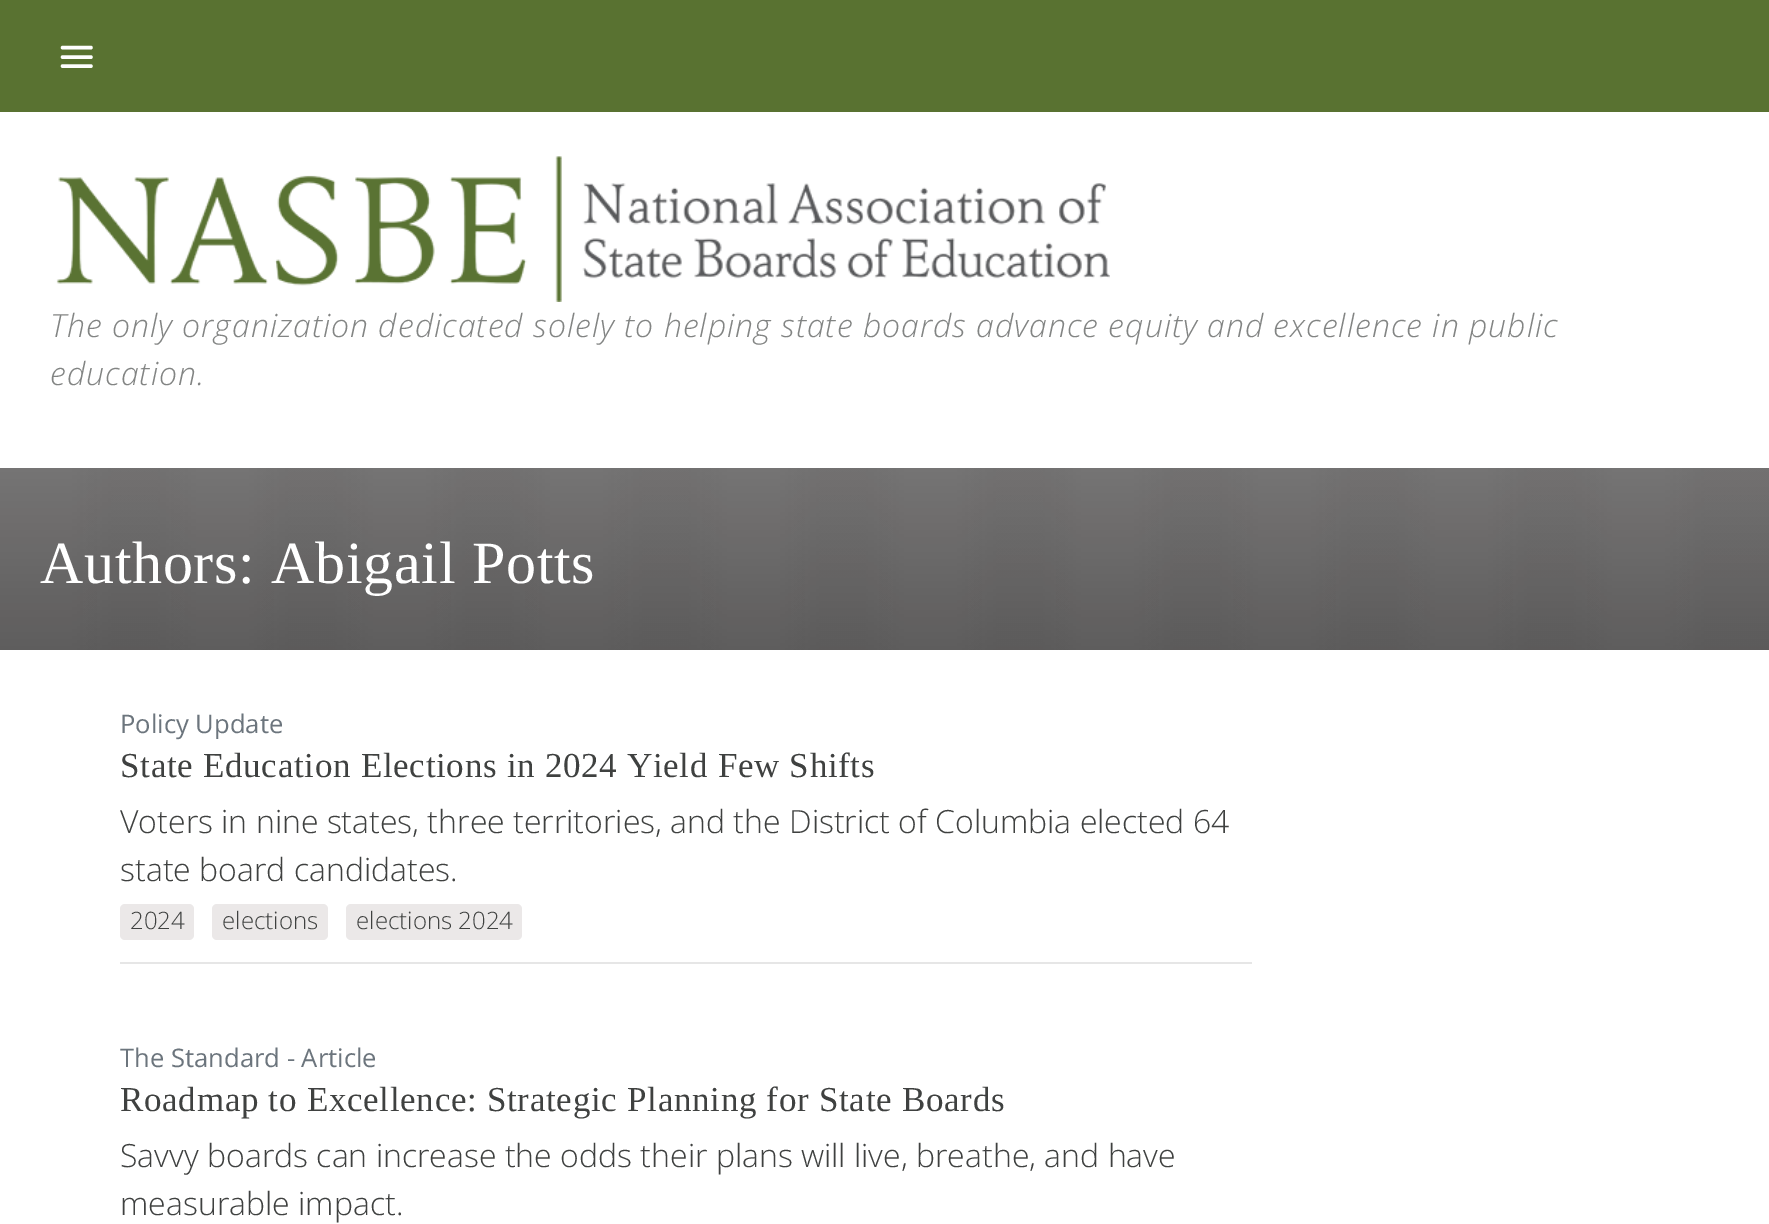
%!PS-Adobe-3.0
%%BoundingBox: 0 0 1769 1224
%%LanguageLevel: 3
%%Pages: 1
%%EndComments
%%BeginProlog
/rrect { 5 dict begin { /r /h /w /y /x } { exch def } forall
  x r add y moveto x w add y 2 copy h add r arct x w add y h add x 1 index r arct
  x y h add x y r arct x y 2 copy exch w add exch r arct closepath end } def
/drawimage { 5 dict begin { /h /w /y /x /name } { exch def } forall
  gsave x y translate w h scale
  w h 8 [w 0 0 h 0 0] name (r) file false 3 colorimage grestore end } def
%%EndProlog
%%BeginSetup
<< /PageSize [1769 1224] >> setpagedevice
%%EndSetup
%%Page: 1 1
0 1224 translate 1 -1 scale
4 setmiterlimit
1 setgray
0 0 1769 1224 rectfill
0.349 0.447 0.192 setrgbcolor
0 0 1769 112 rectfill
1 setgray
3.5 setlinewidth
1 setlinecap
newpath 62.5 47.5 moveto 91 47.5 lineto 62.5 57 moveto 91 57 lineto 62.5 66 moveto 91 66 lineto stroke
(images/1.raw) 56 156 1054 146 drawimage
0.922 0.91 0.91 setrgbcolor
0 468 1769 182 rectfill
(images/2.raw) 0 468 1769 182 drawimage
120 904 74 36 5 rrect fill
212 904 116 36 5 rrect fill
346 904 176 36 5 rrect fill
0.902 setgray
120 962 1132 2 rectfill
/OpenSans-LightItalic [32 0 0 -32 0 0] selectfont
0.51 0.518 0.514 setrgbcolor
50 337 moveto 1 0 (The only organization dedicated solely to helping state boards advance equity and excellence in public) ashow
50 385 moveto 1 0 (education.) ashow
/LiberationSerif-Regular [60 0 0 -60 0 0] selectfont
1 setgray
40 583 moveto 0.7 0 (Authors: Abigail Potts) ashow
/OpenSans-Regular [25.6 0 0 -25.6 0 0] selectfont
0.424 0.459 0.49 setrgbcolor
120 733 moveto (Policy Update) show
/LiberationSerif-Regular [35 0 0 -35 0 0] selectfont
0.247 0.255 0.251 setrgbcolor
120 777 moveto 0.7 0 (State Education Elections in 2024 Yield Few Shifts) ashow
/OpenSans-Light [32 0 0 -32 0 0] selectfont
120 833 moveto (Voters in nine states, three territories, and the District of Columbia elected 64) show
120 881 moveto (state board candidates.) show
/OpenSans-Light [24 0 0 -24 0 0] selectfont
130 929 moveto (2024) show
222 929 moveto (elections) show
356 929 moveto (elections 2024) show
/OpenSans-Regular [25.6 0 0 -25.6 0 0] selectfont
0.424 0.459 0.49 setrgbcolor
120 1067 moveto (The Standard - Article) show
/LiberationSerif-Regular [35 0 0 -35 0 0] selectfont
0.247 0.255 0.251 setrgbcolor
120 1111 moveto 0.7 0 (Roadmap to Excellence: Strategic Planning for State Boards) ashow
/OpenSans-Light [32 0 0 -32 0 0] selectfont
120 1167 moveto (Savvy boards can increase the odds their plans will live, breathe, and have) show
120 1215 moveto (measurable impact.) show
showpage
%%EOF
